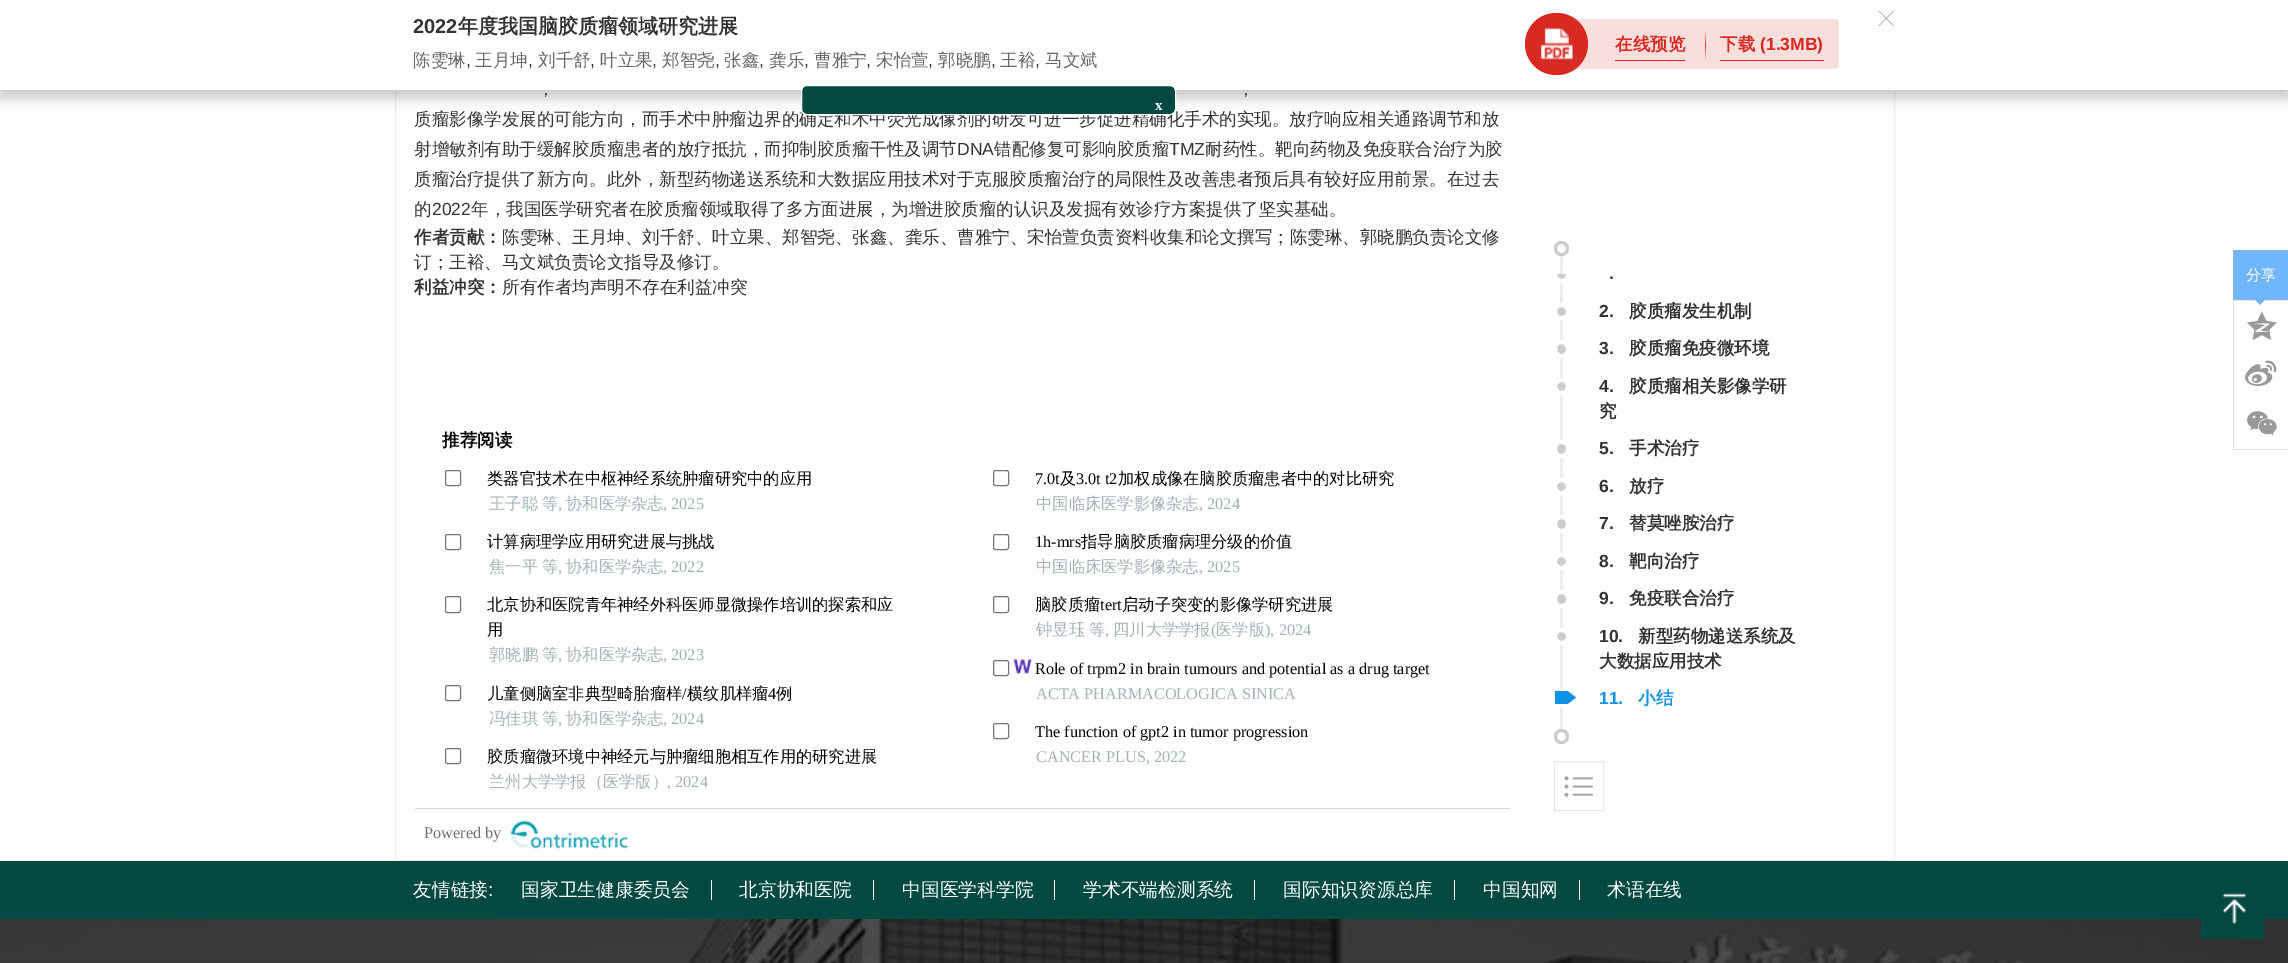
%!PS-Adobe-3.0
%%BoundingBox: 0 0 2288 963
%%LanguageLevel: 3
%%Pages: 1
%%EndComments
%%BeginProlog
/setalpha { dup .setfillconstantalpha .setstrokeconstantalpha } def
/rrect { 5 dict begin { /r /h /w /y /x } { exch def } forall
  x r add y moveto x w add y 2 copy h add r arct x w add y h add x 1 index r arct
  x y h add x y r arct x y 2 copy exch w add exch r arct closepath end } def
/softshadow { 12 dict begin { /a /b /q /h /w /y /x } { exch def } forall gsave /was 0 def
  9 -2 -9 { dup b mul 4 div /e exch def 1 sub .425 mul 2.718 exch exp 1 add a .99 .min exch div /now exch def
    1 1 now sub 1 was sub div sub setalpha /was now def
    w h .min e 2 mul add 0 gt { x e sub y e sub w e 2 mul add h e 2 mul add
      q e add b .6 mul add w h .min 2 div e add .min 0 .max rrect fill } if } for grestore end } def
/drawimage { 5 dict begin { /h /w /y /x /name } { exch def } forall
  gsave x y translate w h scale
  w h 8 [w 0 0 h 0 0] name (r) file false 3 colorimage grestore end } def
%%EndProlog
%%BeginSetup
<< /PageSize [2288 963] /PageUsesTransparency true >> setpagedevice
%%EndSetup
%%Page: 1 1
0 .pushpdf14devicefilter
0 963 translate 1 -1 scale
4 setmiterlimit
1 setgray
0 0 2288 963 rectfill
0.933 setgray
395.5 -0.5 1499 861 rectstroke
0 setgray
-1 5 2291 94 0 6 0.2 softshadow
1 setgray
0 0 2288 90 rectfill
0.8 setgray
0 90 2288 1 rectfill
0.973 0.871 0.863 setrgbcolor
newpath 1556 19 moveto 1835 19 lineto 1837 19 1839 20 1839 22 curveto 1839 65 lineto 1839 67 1837 69 1835 69 curveto 1556 69 lineto closepath fill
0.839 0.165 0.133 setrgbcolor
1525 13 63 62 31 rrect fill
(images/1.raw) 1541 28 32 32 drawimage
0.851 0.149 0.118 setrgbcolor
1615 60 70 1 rectfill
gsave newpath 1705 30 moveto 1706 30 lineto 1706 61 lineto 1705 61 lineto closepath clip newpath
<< /ShadingType 2 /ColorSpace /DeviceRGB /Coords [1706 30 1706 61] /Extend [true true] /Function << /FunctionType 3 /Domain [0 1] /Functions [<< /FunctionType 2 /Domain [0 1] /C0 [0.973 0.871 0.863] /C1 [0.839 0.165 0.133] /N 1 >> << /FunctionType 2 /Domain [0 1] /C0 [0.839 0.165 0.133] /C1 [0.973 0.871 0.863] /N 1 >>] /Bounds [0.5] /Encode [0 1 0 1] >> >> shfill grestore
1720 60 104 1 rectfill
(images/2.raw) 1878 10 16 16 drawimage
0.463 setgray
445.5 470.5 15 15 2 rrect stroke
445.5 534.5 15 15 2 rrect stroke
445.5 596.5 15 16 2 rrect stroke
445.5 685.5 15 15 2 rrect stroke
445.5 748.5 15 15 2 rrect stroke
993.5 470.5 15 15 2 rrect stroke
993.5 534.5 15 15 2 rrect stroke
993.5 596.5 15 16 2 rrect stroke
993.5 660.5 15 15 2 rrect stroke
(images/3.raw) 1013 659 19 15 drawimage
993.5 723.5 15 15 2 rrect stroke
0.831 0.831 0.839 setrgbcolor
415 808 1095 1 rectfill
(images/4.raw) 511 820 117 29 drawimage
0.933 setgray
1560 249 3 487 rectfill
1 setgray
newpath 1561.5 248.5 6 0 360 arc closepath gsave fill grestore
0.8 setgray
3 setlinewidth
stroke
gsave
1554 274 306 437 rectclip
1555 267 13 14 6.5 rrect gsave fill grestore
1 setgray
4 setlinewidth
stroke
0.8 setgray
newpath 1561.5 311.5 6.5 0 360 arc closepath gsave fill grestore
1 setgray
stroke
0.8 setgray
1555 342 13 14 6.5 rrect gsave fill grestore
1 setgray
stroke
0.8 setgray
newpath 1561.5 386.5 6.5 0 360 arc closepath gsave fill grestore
1 setgray
stroke
0.8 setgray
1555 442 13 14 6.5 rrect gsave fill grestore
1 setgray
stroke
0.8 setgray
newpath 1561.5 486.5 6.5 0 360 arc closepath gsave fill grestore
1 setgray
stroke
0.8 setgray
1555 517 13 14 6.5 rrect gsave fill grestore
1 setgray
stroke
0.8 setgray
newpath 1561.5 561.5 6.5 0 360 arc closepath gsave fill grestore
1 setgray
stroke
0.8 setgray
1555 592 13 14 6.5 rrect gsave fill grestore
1 setgray
stroke
0.8 setgray
newpath 1561.5 636.5 6.5 0 360 arc closepath gsave fill grestore
1 setgray
stroke
1555 692 13 14 6.5 rrect stroke
grestore
0.067 0.576 0.894 setrgbcolor
1555 691 13 13 rectfill
newpath 1567.5 704 moveto 1567.5 691 lineto 1576 697.5 lineto closepath fill
1 setgray
newpath 1561.5 736.5 6 0 360 arc closepath gsave fill grestore
0.8 setgray
stroke
0.902 setgray
1 setlinewidth
1554.5 761.5 49 49 rectstroke
(images/5.raw) 1564 776 29 21 drawimage
0.878 setgray
2233 449 55 1 rectfill
0.439 0.714 0.988 setrgbcolor
newpath 2233.5 250.5 moveto 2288.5 250.5 lineto 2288.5 299.5 lineto 2233.5 299.5 lineto closepath gsave fill grestore
0.549 0.69 0.831 setrgbcolor
stroke
newpath 2252.5 297.5 moveto 2267.5 297.5 lineto 2260 305 lineto closepath fill
0.439 0.714 0.988 setrgbcolor
newpath 2254 297.5 moveto 2266 297.5 lineto 2260 304 lineto closepath fill
0.878 setgray
2233 300 1 150 rectfill
(images/6.raw) 2247 311 30 29 drawimage
(images/7.raw) 2245 360 32 26 drawimage
(images/8.raw) 2247 411 30 25 drawimage
0.008 0.286 0.255 setrgbcolor
0 861 2288 58 rectfill
1 setgray
711 880 1 20 rectfill
873 880 1 20 rectfill
1054 880 1 20 rectfill
1254 880 1 20 rectfill
1454 880 1 20 rectfill
1579 880 1 20 rectfill
(images/9.raw) 0 919 2288 44 drawimage
0.008 0.286 0.255 setrgbcolor
2201 919 63 20 rectfill
(images/10.raw) 2222 893 25 31 drawimage
/LiberationSans-Bold [20 0 0 -20 0 0] selectfont
0.2 setgray
413 33 moveto (2022) show
/WenQuanYiZenHei-Bold [20 0 0 -20 0 0] selectfont
458 33 moveto (年度我国脑胶质瘤领域研究进展) show
/WenQuanYiZenHei-Medium [17.5 0 0 -17.5 0 0] selectfont
0.4 setgray
413 66 moveto (陈雯琳) show
/LiberationSans-Regular [17.5 0 0 -17.5 0 0] selectfont
0.2 setgray
466 66 moveto (,) show
/WenQuanYiZenHei-Medium [17.5 0 0 -17.5 0 0] selectfont
0.4 setgray
475 66 moveto (王月坤) show
/LiberationSans-Regular [17.5 0 0 -17.5 0 0] selectfont
0.2 setgray
528 66 moveto (,) show
/WenQuanYiZenHei-Medium [17.5 0 0 -17.5 0 0] selectfont
0.4 setgray
538 66 moveto (刘千舒) show
/LiberationSans-Regular [17.5 0 0 -17.5 0 0] selectfont
0.2 setgray
590 66 moveto (,) show
/WenQuanYiZenHei-Medium [17.5 0 0 -17.5 0 0] selectfont
0.4 setgray
600 66 moveto (叶立果) show
/LiberationSans-Regular [17.5 0 0 -17.5 0 0] selectfont
0.2 setgray
652 66 moveto (,) show
/WenQuanYiZenHei-Medium [17.5 0 0 -17.5 0 0] selectfont
0.4 setgray
662 66 moveto (郑智尧) show
/LiberationSans-Regular [17.5 0 0 -17.5 0 0] selectfont
0.2 setgray
715 66 moveto (,) show
/WenQuanYiZenHei-Medium [17.5 0 0 -17.5 0 0] selectfont
0.4 setgray
724 66 moveto (张鑫) show
/LiberationSans-Regular [17.5 0 0 -17.5 0 0] selectfont
0.2 setgray
759 66 moveto (,) show
/WenQuanYiZenHei-Medium [17.5 0 0 -17.5 0 0] selectfont
0.4 setgray
769 66 moveto (龚乐) show
/LiberationSans-Regular [17.5 0 0 -17.5 0 0] selectfont
0.2 setgray
804 66 moveto (,) show
/WenQuanYiZenHei-Medium [17.5 0 0 -17.5 0 0] selectfont
0.4 setgray
814 66 moveto (曹雅宁) show
/LiberationSans-Regular [17.5 0 0 -17.5 0 0] selectfont
0.2 setgray
866 66 moveto (,) show
/WenQuanYiZenHei-Medium [17.5 0 0 -17.5 0 0] selectfont
0.4 setgray
876 66 moveto (宋怡萱) show
/LiberationSans-Regular [17.5 0 0 -17.5 0 0] selectfont
0.2 setgray
928 66 moveto (,) show
/WenQuanYiZenHei-Medium [17.5 0 0 -17.5 0 0] selectfont
0.4 setgray
938 66 moveto (郭晓鹏) show
/LiberationSans-Regular [17.5 0 0 -17.5 0 0] selectfont
0.2 setgray
991 66 moveto (,) show
/WenQuanYiZenHei-Medium [17.5 0 0 -17.5 0 0] selectfont
0.4 setgray
1000 66 moveto (王裕) show
/LiberationSans-Regular [17.5 0 0 -17.5 0 0] selectfont
0.2 setgray
1035 66 moveto (,) show
/WenQuanYiZenHei-Medium [17.5 0 0 -17.5 0 0] selectfont
0.4 setgray
1045 66 moveto (马文斌) show
/WenQuanYiZenHei-Bold [17.5 0 0 -17.5 0 0] selectfont
0.851 0.149 0.118 setrgbcolor
1615 50 moveto (在线预览) show
1720 50 moveto (下载) show
/LiberationSans-Bold [17.5 0 0 -17.5 0 0] selectfont
1760 50 moveto (\(1.3MB\)) show
/WenQuanYiZenHei-Medium [17.5 0 0 -17.5 0 0] selectfont
0.2 setgray
537 95 moveto (，) show
1237 95 moveto (，) show
414 125 moveto (质瘤影像学发展的可能方向，而手术中肿瘤边界的确定和术中荧光成像剂的研发可进一步促进精确化手术的实现。放疗响应相关通路调节和放) show
414 155 moveto (射增敏剂有助于缓解胶质瘤患者的放疗抵抗，而抑制胶质瘤干性及调节) show
/LiberationSans-Regular [17.5 0 0 -17.5 0 0] selectfont
957 155 moveto (DNA) show
/WenQuanYiZenHei-Medium [17.5 0 0 -17.5 0 0] selectfont
994 155 moveto (错配修复可影响胶质瘤) show
/LiberationSans-Regular [17.5 0 0 -17.5 0 0] selectfont
1169 155 moveto (TMZ) show
/WenQuanYiZenHei-Medium [17.5 0 0 -17.5 0 0] selectfont
1205 155 moveto (耐药性。靶向药物及免疫联合治疗为胶) show
414 185 moveto (质瘤治疗提供了新方向。此外，新型药物递送系统和大数据应用技术对于克服胶质瘤治疗的局限性及改善患者预后具有较好应用前景。在过去) show
414 215 moveto (的) show
/LiberationSans-Regular [17.5 0 0 -17.5 0 0] selectfont
432 215 moveto (2022) show
/WenQuanYiZenHei-Medium [17.5 0 0 -17.5 0 0] selectfont
471 215 moveto (年，我国医学研究者在胶质瘤领域取得了多方面进展，为增进胶质瘤的认识及发掘有效诊疗方案提供了坚实基础。) show
/WenQuanYiZenHei-Bold [17.5 0 0 -17.5 0 0] selectfont
414 243 moveto (作者贡献：) show
/WenQuanYiZenHei-Medium [17.5 0 0 -17.5 0 0] selectfont
502 243 moveto (陈雯琳、王月坤、刘千舒、叶立果、郑智尧、张鑫、龚乐、曹雅宁、宋怡萱负责资料收集和论文撰写；陈雯琳、郭晓鹏负责论文修) show
414 268 moveto (订；王裕、马文斌负责论文指导及修订。) show
/WenQuanYiZenHei-Bold [17.5 0 0 -17.5 0 0] selectfont
414 293 moveto (利益冲突：) show
/WenQuanYiZenHei-Medium [17.5 0 0 -17.5 0 0] selectfont
502 293 moveto (所有作者均声明不存在利益冲突) show
/WenQuanYiZenHei-Bold [17.5 0 0 -17.5 0 0] selectfont
0 setgray
442 446 moveto (推荐阅读) show
/WenQuanYiZenHei-Medium [16.25 0 0 -16.25 0 0] selectfont
487 484 moveto (类器官技术在中枢神经系统肿瘤研究中的应用) show
0.635 0.694 0.714 setrgbcolor
489 509 moveto (王子聪) show
542 509 moveto (等) show
/LiberationSerif-Regular [16.25 0 0 -16.25 0 0] selectfont
558 509 moveto (,) show
/WenQuanYiZenHei-Medium [16.25 0 0 -16.25 0 0] selectfont
566 509 moveto (协和医学杂志) show
/LiberationSerif-Regular [16.25 0 0 -16.25 0 0] selectfont
663 509 moveto (, 2025) show
/WenQuanYiZenHei-Medium [16.25 0 0 -16.25 0 0] selectfont
0 setgray
487 547 moveto (计算病理学应用研究进展与挑战) show
0.635 0.694 0.714 setrgbcolor
489 572 moveto (焦一平) show
542 572 moveto (等) show
/LiberationSerif-Regular [16.25 0 0 -16.25 0 0] selectfont
558 572 moveto (,) show
/WenQuanYiZenHei-Medium [16.25 0 0 -16.25 0 0] selectfont
566 572 moveto (协和医学杂志) show
/LiberationSerif-Regular [16.25 0 0 -16.25 0 0] selectfont
663 572 moveto (, 2022) show
/WenQuanYiZenHei-Medium [16.25 0 0 -16.25 0 0] selectfont
0 setgray
487 610 moveto (北京协和医院青年神经外科医师显微操作培训的探索和应) show
487 635 moveto (用) show
0.635 0.694 0.714 setrgbcolor
489 660 moveto (郭晓鹏) show
542 660 moveto (等) show
/LiberationSerif-Regular [16.25 0 0 -16.25 0 0] selectfont
558 660 moveto (,) show
/WenQuanYiZenHei-Medium [16.25 0 0 -16.25 0 0] selectfont
566 660 moveto (协和医学杂志) show
/LiberationSerif-Regular [16.25 0 0 -16.25 0 0] selectfont
663 660 moveto (, 2023) show
/WenQuanYiZenHei-Medium [16.25 0 0 -16.25 0 0] selectfont
0 setgray
487 699 moveto (儿童侧脑室非典型畸胎瘤样) show
/LiberationSerif-Regular [16.25 0 0 -16.25 0 0] selectfont
682 699 moveto (/) show
/WenQuanYiZenHei-Medium [16.25 0 0 -16.25 0 0] selectfont
687 699 moveto (横纹肌样瘤) show
/LiberationSerif-Regular [16.25 0 0 -16.25 0 0] selectfont
768 699 moveto (4) show
/WenQuanYiZenHei-Medium [16.25 0 0 -16.25 0 0] selectfont
776 699 moveto (例) show
0.635 0.694 0.714 setrgbcolor
489 724 moveto (冯佳琪) show
542 724 moveto (等) show
/LiberationSerif-Regular [16.25 0 0 -16.25 0 0] selectfont
558 724 moveto (,) show
/WenQuanYiZenHei-Medium [16.25 0 0 -16.25 0 0] selectfont
566 724 moveto (协和医学杂志) show
/LiberationSerif-Regular [16.25 0 0 -16.25 0 0] selectfont
663 724 moveto (, 2024) show
/WenQuanYiZenHei-Medium [16.25 0 0 -16.25 0 0] selectfont
0 setgray
487 762 moveto (胶质瘤微环境中神经元与肿瘤细胞相互作用的研究进展) show
0.635 0.694 0.714 setrgbcolor
489 787 moveto (兰州大学学报（医学版）) show
/LiberationSerif-Regular [16.25 0 0 -16.25 0 0] selectfont
667 787 moveto (, 2024) show
0 setgray
1035 484 moveto (7.0t) show
/WenQuanYiZenHei-Medium [16.25 0 0 -16.25 0 0] selectfont
1060 484 moveto (及) show
/LiberationSerif-Regular [16.25 0 0 -16.25 0 0] selectfont
1076 484 moveto (3.0t t2) show
/WenQuanYiZenHei-Medium [16.25 0 0 -16.25 0 0] selectfont
1118 484 moveto (加权成像在脑胶质瘤患者中的对比研究) show
0.635 0.694 0.714 setrgbcolor
1036 509 moveto (中国临床医学影像杂志) show
/LiberationSerif-Regular [16.25 0 0 -16.25 0 0] selectfont
1199 509 moveto (, 2024) show
0 setgray
1035 547 moveto (1h-mrs) show
/WenQuanYiZenHei-Medium [16.25 0 0 -16.25 0 0] selectfont
1081 547 moveto (指导脑胶质瘤病理分级的价值) show
0.635 0.694 0.714 setrgbcolor
1036 572 moveto (中国临床医学影像杂志) show
/LiberationSerif-Regular [16.25 0 0 -16.25 0 0] selectfont
1199 572 moveto (, 2025) show
/WenQuanYiZenHei-Medium [16.25 0 0 -16.25 0 0] selectfont
0 setgray
1035 610 moveto (脑胶质瘤) show
/LiberationSerif-Regular [16.25 0 0 -16.25 0 0] selectfont
1100 610 moveto (tert) show
/WenQuanYiZenHei-Medium [16.25 0 0 -16.25 0 0] selectfont
1122 610 moveto (启动子突变的影像学研究进展) show
0.635 0.694 0.714 setrgbcolor
1036 635 moveto (钟昱珏) show
1089 635 moveto (等) show
/LiberationSerif-Regular [16.25 0 0 -16.25 0 0] selectfont
1105 635 moveto (,) show
/WenQuanYiZenHei-Medium [16.25 0 0 -16.25 0 0] selectfont
1113 635 moveto (四川大学学报) show
/LiberationSerif-Regular [16.25 0 0 -16.25 0 0] selectfont
1211 635 moveto (\() show
/WenQuanYiZenHei-Medium [16.25 0 0 -16.25 0 0] selectfont
1216 635 moveto (医学版) show
/LiberationSerif-Regular [16.25 0 0 -16.25 0 0] selectfont
1265 635 moveto (\), 2024) show
0 setgray
1035 674 moveto (Role of trpm2 in brain tumours and potential as a drug target) show
0.635 0.694 0.714 setrgbcolor
1036 699 moveto (ACTA PHARMACOLOGICA SINICA) show
0 setgray
1035 737 moveto (The function of gpt2 in tumor progression) show
0.635 0.694 0.714 setrgbcolor
1036 762 moveto (CANCER PLUS, 2022) show
0.439 setgray
424 838 moveto (Powered by) show
/LiberationSans-Bold [17.5 0 0 -17.5 0 0] selectfont
0.2 setgray
1609 279 moveto (.) show
1599 317 moveto (2.) show
/WenQuanYiZenHei-Bold [17.5 0 0 -17.5 0 0] selectfont
1629 317 moveto (胶质瘤发生机制) show
/LiberationSans-Bold [17.5 0 0 -17.5 0 0] selectfont
1599 354 moveto (3.) show
/WenQuanYiZenHei-Bold [17.5 0 0 -17.5 0 0] selectfont
1629 354 moveto (胶质瘤免疫微环境) show
/LiberationSans-Bold [17.5 0 0 -17.5 0 0] selectfont
1599 392 moveto (4.) show
/WenQuanYiZenHei-Bold [17.5 0 0 -17.5 0 0] selectfont
1629 392 moveto (胶质瘤相关影像学研) show
1599 417 moveto (究) show
/LiberationSans-Bold [17.5 0 0 -17.5 0 0] selectfont
1599 454 moveto (5.) show
/WenQuanYiZenHei-Bold [17.5 0 0 -17.5 0 0] selectfont
1629 454 moveto (手术治疗) show
/LiberationSans-Bold [17.5 0 0 -17.5 0 0] selectfont
1599 492 moveto (6.) show
/WenQuanYiZenHei-Bold [17.5 0 0 -17.5 0 0] selectfont
1629 492 moveto (放疗) show
/LiberationSans-Bold [17.5 0 0 -17.5 0 0] selectfont
1599 529 moveto (7.) show
/WenQuanYiZenHei-Bold [17.5 0 0 -17.5 0 0] selectfont
1629 529 moveto (替莫唑胺治疗) show
/LiberationSans-Bold [17.5 0 0 -17.5 0 0] selectfont
1599 567 moveto (8.) show
/WenQuanYiZenHei-Bold [17.5 0 0 -17.5 0 0] selectfont
1629 567 moveto (靶向治疗) show
/LiberationSans-Bold [17.5 0 0 -17.5 0 0] selectfont
1599 604 moveto (9.) show
/WenQuanYiZenHei-Bold [17.5 0 0 -17.5 0 0] selectfont
1629 604 moveto (免疫联合治疗) show
/LiberationSans-Bold [17.5 0 0 -17.5 0 0] selectfont
1599 642 moveto (10.) show
/WenQuanYiZenHei-Bold [17.5 0 0 -17.5 0 0] selectfont
1638 642 moveto (新型药物递送系统及) show
1599 667 moveto (大数据应用技术) show
/LiberationSans-Bold [17.5 0 0 -17.5 0 0] selectfont
0.067 0.576 0.894 setrgbcolor
1599 704 moveto (11.) show
/WenQuanYiZenHei-Bold [17.5 0 0 -17.5 0 0] selectfont
1638 704 moveto (小结) show
0.008 0.286 0.255 setrgbcolor
801.5 85.5 374 29 5.5 rrect gsave fill grestore
1 setgray
stroke
/LiberationSerif-Bold [15 0 0 -15 0 0] selectfont
1155 110 moveto (x) show
/WenQuanYiZenHei-Medium [15 0 0 -15 0 0] selectfont
2246 280 moveto (分享) show
/WenQuanYiZenHei-Medium [18.75 0 0 -18.75 0 0] selectfont
413 896 moveto (友情链接) show
/LiberationSans-Regular [18.75 0 0 -18.75 0 0] selectfont
488 896 moveto (:) show
/WenQuanYiZenHei-Medium [18.75 0 0 -18.75 0 0] selectfont
521 896 moveto (国家卫生健康委员会) show
739 896 moveto (北京协和医院) show
902 896 moveto (中国医学科学院) show
1083 896 moveto (学术不端检测系统) show
1283 896 moveto (国际知识资源总库) show
1483 896 moveto (中国知网) show
1607 896 moveto (术语在线) show
.poppdf14devicefilter showpage
%%EOF
